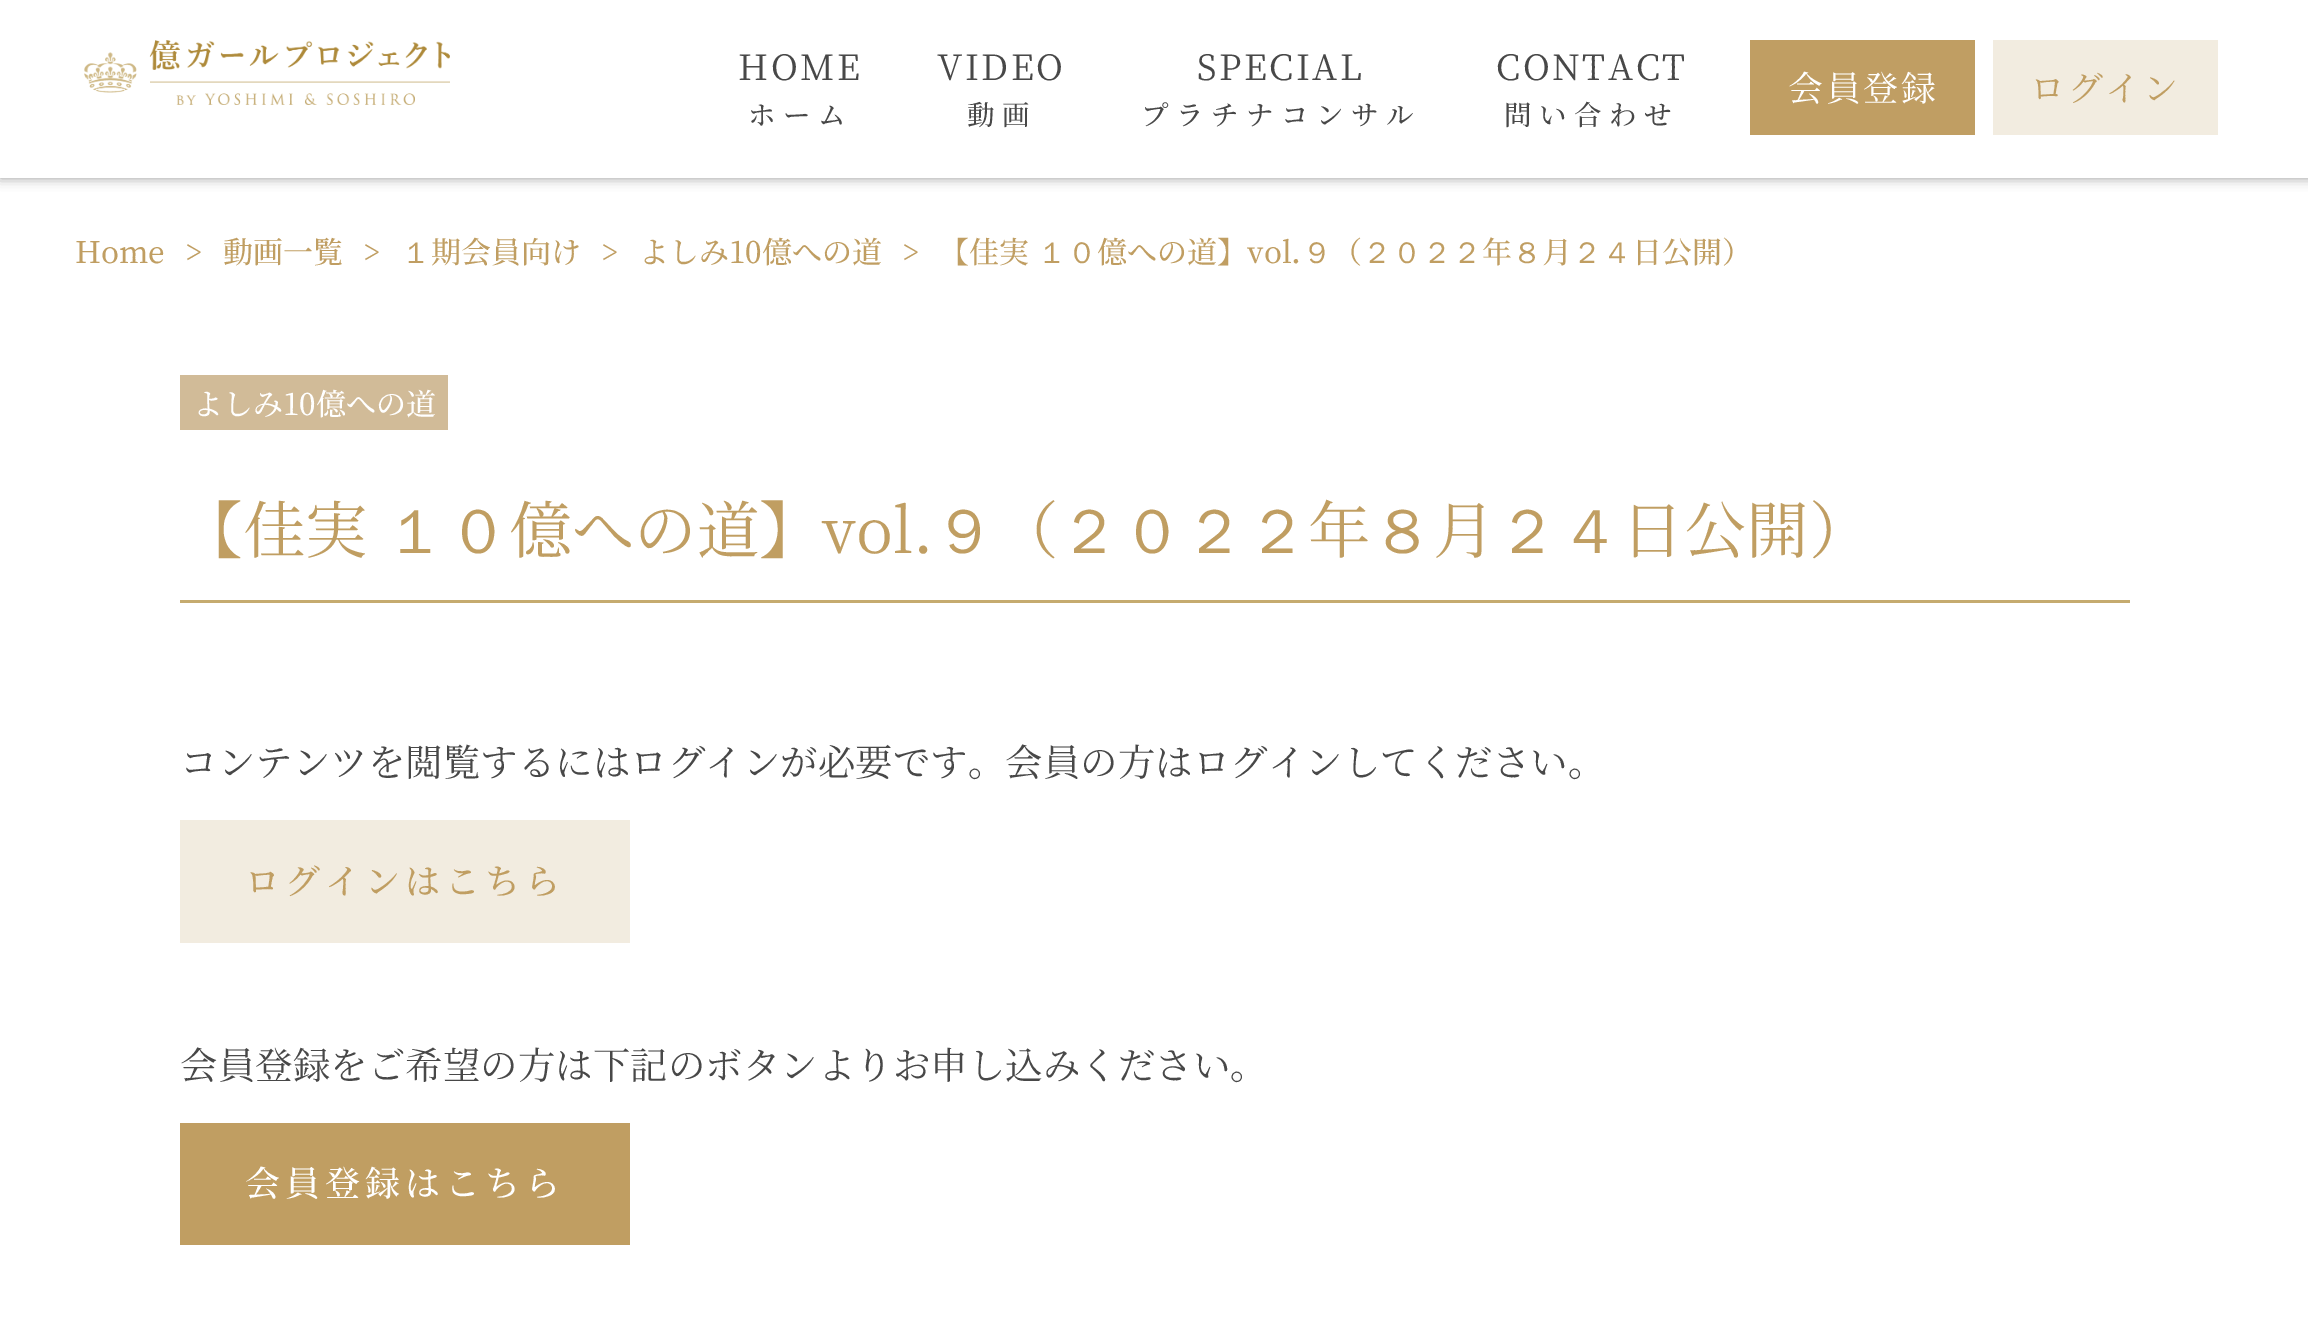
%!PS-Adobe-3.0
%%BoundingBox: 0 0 2308 1329
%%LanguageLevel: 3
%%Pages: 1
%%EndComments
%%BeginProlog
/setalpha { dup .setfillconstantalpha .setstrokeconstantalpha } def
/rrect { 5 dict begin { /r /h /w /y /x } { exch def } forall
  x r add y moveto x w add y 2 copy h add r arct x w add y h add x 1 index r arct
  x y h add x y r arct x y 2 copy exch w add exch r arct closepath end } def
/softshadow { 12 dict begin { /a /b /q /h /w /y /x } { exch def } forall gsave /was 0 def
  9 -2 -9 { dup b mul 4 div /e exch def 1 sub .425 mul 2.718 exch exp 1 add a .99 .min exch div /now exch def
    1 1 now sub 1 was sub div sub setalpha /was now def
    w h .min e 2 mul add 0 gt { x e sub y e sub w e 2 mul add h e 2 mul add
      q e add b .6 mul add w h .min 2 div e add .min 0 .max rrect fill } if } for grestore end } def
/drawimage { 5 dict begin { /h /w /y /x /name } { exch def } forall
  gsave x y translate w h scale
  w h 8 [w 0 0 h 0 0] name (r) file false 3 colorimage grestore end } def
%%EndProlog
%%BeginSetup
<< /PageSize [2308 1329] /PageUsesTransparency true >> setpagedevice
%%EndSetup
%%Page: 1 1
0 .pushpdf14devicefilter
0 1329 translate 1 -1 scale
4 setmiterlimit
1 setgray
0 0 2308 1329 rectfill
gsave
newpath 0 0 moveto 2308 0 lineto 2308 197 lineto 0 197 lineto closepath 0 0 moveto 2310 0 lineto 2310 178 lineto 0 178 lineto closepath eoclip newpath
0.6 setgray
0 0 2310 178 0 6 1 softshadow
grestore
0.95 setalpha
0 177 2308 1 rectfill
1 setalpha
(images/1.raw) 84 40 366 65 drawimage
0.753 0.62 0.388 setrgbcolor
1750 40 225 95 rectfill
0.949 0.925 0.878 setrgbcolor
1993 40 225 95 rectfill
0.82 0.733 0.596 setrgbcolor
180 375 268 55 rectfill
0.773 0.671 0.435 setrgbcolor
180 600 1950 3 rectfill
0.949 0.925 0.878 setrgbcolor
180 820 450 123 rectfill
0.753 0.62 0.384 setrgbcolor
180 1123 450 122 rectfill
/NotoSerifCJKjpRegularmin-Regular [35 0 0 -35 0 0] selectfont
0.282 setgray
738 80 moveto 2.5 0 (HOME) ashow
/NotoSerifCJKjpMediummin-Medium [27.5 0 0 -27.5 0 0] selectfont
748 125 moveto 7.5 0 (ホーム) ashow
/NotoSerifCJKjpRegularmin-Regular [35 0 0 -35 0 0] selectfont
937 80 moveto 2.5 0 (VIDEO) ashow
/NotoSerifCJKjpMediummin-Medium [27.5 0 0 -27.5 0 0] selectfont
967 125 moveto 7.5 0 (動画) ashow
/NotoSerifCJKjpRegularmin-Regular [35 0 0 -35 0 0] selectfont
1197 80 moveto 2.5 0 (SPECIAL) ashow
/NotoSerifCJKjpMediummin-Medium [27.5 0 0 -27.5 0 0] selectfont
1141 125 moveto 7.5 0 (プラチナコンサル) ashow
/NotoSerifCJKjpRegularmin-Regular [35 0 0 -35 0 0] selectfont
1496 80 moveto 2.5 0 (CONTACT) ashow
/NotoSerifCJKjpMediummin-Medium [27.5 0 0 -27.5 0 0] selectfont
1504 125 moveto 7.5 0 (問い合わせ) ashow
/NotoSerifCJKjpRegularmin-Regular [35 0 0 -35 0 0] selectfont
1 setgray
1788 101 moveto 2.5 0 (会員登録) ashow
0.753 0.62 0.384 setrgbcolor
2030 101 moveto 2.5 0 (ログイン) ashow
/NotoSerifCJKjpMediummin-Medium [30 0 0 -30 0 0] selectfont
75 263 moveto (Home) show
185 263 moveto (>) show
223 263 moveto (動画一覧) show
363 263 moveto (>) show
/WenQuanYiZenHei-Medium [30 0 0 -30 0 0] selectfont
401 263 moveto (１) show
/NotoSerifCJKjpMediummin-Medium [30 0 0 -30 0 0] selectfont
431 263 moveto (期会員向け) show
601 263 moveto (>) show
639 263 moveto (よしみ10億への道) show
902 263 moveto (>) show
939 263 moveto (【佳実) show
/WenQuanYiZenHei-Medium [30 0 0 -30 0 0] selectfont
1037 263 moveto (１０) show
/NotoSerifCJKjpMediummin-Medium [30 0 0 -30 0 0] selectfont
1097 263 moveto (億への道】vol.) show
/WenQuanYiZenHei-Medium [30 0 0 -30 0 0] selectfont
1302 263 moveto (９) show
/NotoSerifCJKjpMediummin-Medium [30 0 0 -30 0 0] selectfont
1332 263 moveto (（) show
/WenQuanYiZenHei-Medium [30 0 0 -30 0 0] selectfont
1362 263 moveto (２０２２) show
/NotoSerifCJKjpMediummin-Medium [30 0 0 -30 0 0] selectfont
1482 263 moveto (年) show
/WenQuanYiZenHei-Medium [30 0 0 -30 0 0] selectfont
1512 263 moveto (８) show
/NotoSerifCJKjpMediummin-Medium [30 0 0 -30 0 0] selectfont
1542 263 moveto (月) show
/WenQuanYiZenHei-Medium [30 0 0 -30 0 0] selectfont
1572 263 moveto (２４) show
/NotoSerifCJKjpMediummin-Medium [30 0 0 -30 0 0] selectfont
1632 263 moveto (日公開）) show
1 setgray
193 415 moveto (よしみ10億への道) show
/NotoSerifCJKjpRegularmin-Regular [62.5 0 0 -62.5 0 0] selectfont
0.753 0.62 0.384 setrgbcolor
180 553 moveto (【佳実) show
/WenQuanYiZenHei-Medium [62.5 0 0 -62.5 0 0] selectfont
384 553 moveto (１０) show
/NotoSerifCJKjpRegularmin-Regular [62.5 0 0 -62.5 0 0] selectfont
509 553 moveto (億への道】vol.) show
/WenQuanYiZenHei-Medium [62.5 0 0 -62.5 0 0] selectfont
933 553 moveto (９) show
/NotoSerifCJKjpRegularmin-Regular [62.5 0 0 -62.5 0 0] selectfont
996 553 moveto (（) show
/WenQuanYiZenHei-Medium [62.5 0 0 -62.5 0 0] selectfont
1058 553 moveto (２０２２) show
/NotoSerifCJKjpRegularmin-Regular [62.5 0 0 -62.5 0 0] selectfont
1308 553 moveto (年) show
/WenQuanYiZenHei-Medium [62.5 0 0 -62.5 0 0] selectfont
1371 553 moveto (８) show
/NotoSerifCJKjpRegularmin-Regular [62.5 0 0 -62.5 0 0] selectfont
1433 553 moveto (月) show
/WenQuanYiZenHei-Medium [62.5 0 0 -62.5 0 0] selectfont
1496 553 moveto (２４) show
/NotoSerifCJKjpRegularmin-Regular [62.5 0 0 -62.5 0 0] selectfont
1621 553 moveto (日公開）) show
/NotoSerifCJKjpRegularmin-Regular [37.5 0 0 -37.5 0 0] selectfont
0.282 setgray
180 776 moveto (コンテンツを閲覧するにはログインが必要です。会員の方はログインしてください。) show
/NotoSerifCJKjpMediummin-Medium [35 0 0 -35 0 0] selectfont
0.753 0.62 0.384 setrgbcolor
245 894 moveto 5 0 (ログインはこちら) ashow
/NotoSerifCJKjpRegularmin-Regular [37.5 0 0 -37.5 0 0] selectfont
0.282 setgray
180 1079 moveto (会員登録をご希望の方は下記のボタンよりお申し込みください。) show
/NotoSerifCJKjpMediummin-Medium [35 0 0 -35 0 0] selectfont
1 setgray
245 1196 moveto 5 0 (会員登録はこちら) ashow
.poppdf14devicefilter showpage
%%EOF
